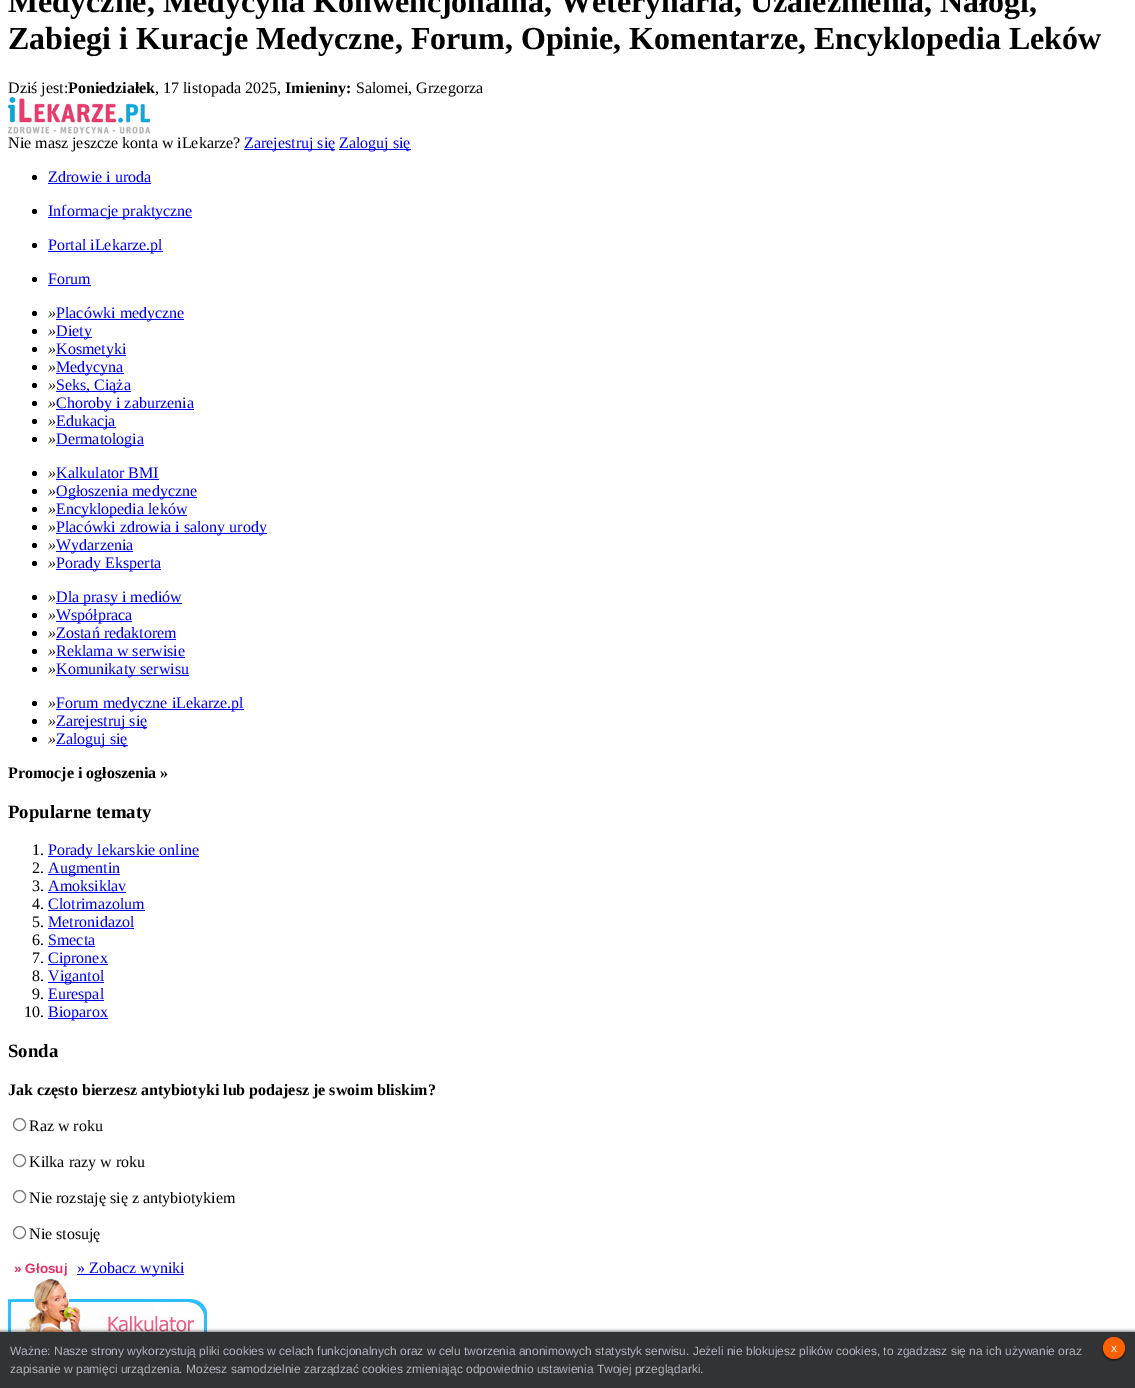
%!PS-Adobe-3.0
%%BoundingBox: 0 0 1135 1388
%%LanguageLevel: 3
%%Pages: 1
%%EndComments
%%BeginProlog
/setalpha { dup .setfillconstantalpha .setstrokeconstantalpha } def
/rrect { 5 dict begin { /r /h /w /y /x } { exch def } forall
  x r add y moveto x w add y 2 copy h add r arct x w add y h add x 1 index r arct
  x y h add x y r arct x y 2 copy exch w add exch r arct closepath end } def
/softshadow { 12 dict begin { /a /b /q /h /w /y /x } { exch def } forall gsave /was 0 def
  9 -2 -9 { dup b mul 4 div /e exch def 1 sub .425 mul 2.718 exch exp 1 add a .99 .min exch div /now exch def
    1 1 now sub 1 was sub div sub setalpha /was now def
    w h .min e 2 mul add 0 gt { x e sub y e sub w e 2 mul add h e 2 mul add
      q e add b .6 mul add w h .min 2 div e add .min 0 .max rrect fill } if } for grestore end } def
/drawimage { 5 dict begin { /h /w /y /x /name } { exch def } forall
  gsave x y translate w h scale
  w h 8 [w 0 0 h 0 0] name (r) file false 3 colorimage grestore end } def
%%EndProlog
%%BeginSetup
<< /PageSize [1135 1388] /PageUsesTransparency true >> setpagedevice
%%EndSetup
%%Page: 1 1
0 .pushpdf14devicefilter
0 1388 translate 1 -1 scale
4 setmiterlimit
1 setgray
0 0 1135 1388 rectfill
(images/1.raw) 8 97 142 37 drawimage
0 0 0.933 setrgbcolor
244 149 91 1 rectfill
339 149 72 1 rectfill
0 setgray
newpath 34.5 177.5 2.5 0 360 arc closepath fill
0 0 0.933 setrgbcolor
48 183 103 1 rectfill
0 setgray
newpath 34.5 211.5 2.5 0 360 arc closepath fill
0 0 0.933 setrgbcolor
48 217 144 1 rectfill
0 setgray
newpath 34.5 245.5 2.5 0 360 arc closepath fill
0 0 0.933 setrgbcolor
48 251 115 1 rectfill
0 setgray
newpath 34.5 279.5 2.5 0 360 arc closepath fill
0 0 0.933 setrgbcolor
48 285 43 1 rectfill
0 setgray
newpath 34.5 313.5 2.5 0 360 arc closepath fill
0 0 0.933 setrgbcolor
56 319 128 1 rectfill
0 setgray
newpath 34.5 331.5 2.5 0 360 arc closepath fill
0 0 0.933 setrgbcolor
56 337 36 1 rectfill
0 setgray
newpath 34.5 349.5 2.5 0 360 arc closepath fill
0 0 0.933 setrgbcolor
56 355 70 1 rectfill
0 setgray
newpath 34.5 367.5 2.5 0 360 arc closepath fill
0 0 0.933 setrgbcolor
56 373 68 1 rectfill
0 setgray
newpath 34.5 385.5 2.5 0 360 arc closepath fill
0 0 0.933 setrgbcolor
56 391 75 1 rectfill
0 setgray
newpath 34.5 403.5 2.5 0 360 arc closepath fill
0 0 0.933 setrgbcolor
56 409 138 1 rectfill
0 setgray
newpath 34.5 421.5 2.5 0 360 arc closepath fill
0 0 0.933 setrgbcolor
56 427 60 1 rectfill
0 setgray
newpath 34.5 439.5 2.5 0 360 arc closepath fill
0 0 0.933 setrgbcolor
56 445 88 1 rectfill
0 setgray
newpath 34.5 473.5 2.5 0 360 arc closepath fill
0 0 0.933 setrgbcolor
56 479 103 1 rectfill
0 setgray
newpath 34.5 491.5 2.5 0 360 arc closepath fill
0 0 0.933 setrgbcolor
56 497 141 1 rectfill
0 setgray
newpath 34.5 509.5 2.5 0 360 arc closepath fill
0 0 0.933 setrgbcolor
56 515 131 1 rectfill
0 setgray
newpath 34.5 527.5 2.5 0 360 arc closepath fill
0 0 0.933 setrgbcolor
56 533 211 1 rectfill
0 setgray
newpath 34.5 545.5 2.5 0 360 arc closepath fill
0 0 0.933 setrgbcolor
56 551 77 1 rectfill
0 setgray
newpath 34.5 563.5 2.5 0 360 arc closepath fill
0 0 0.933 setrgbcolor
56 569 105 1 rectfill
0 setgray
newpath 34.5 597.5 2.5 0 360 arc closepath fill
0 0 0.933 setrgbcolor
56 603 126 1 rectfill
0 setgray
newpath 34.5 615.5 2.5 0 360 arc closepath fill
0 0 0.933 setrgbcolor
56 621 76 1 rectfill
0 setgray
newpath 34.5 633.5 2.5 0 360 arc closepath fill
0 0 0.933 setrgbcolor
56 639 120 1 rectfill
0 setgray
newpath 34.5 651.5 2.5 0 360 arc closepath fill
0 0 0.933 setrgbcolor
56 657 129 1 rectfill
0 setgray
newpath 34.5 669.5 2.5 0 360 arc closepath fill
0 0 0.933 setrgbcolor
56 675 133 1 rectfill
0 setgray
newpath 34.5 703.5 2.5 0 360 arc closepath fill
0 0 0.933 setrgbcolor
56 709 188 1 rectfill
0 setgray
newpath 34.5 721.5 2.5 0 360 arc closepath fill
0 0 0.933 setrgbcolor
56 727 91 1 rectfill
0 setgray
newpath 34.5 739.5 2.5 0 360 arc closepath fill
0 0 0.933 setrgbcolor
56 745 72 1 rectfill
48 856 151 1 rectfill
48 874 72 1 rectfill
48 892 78 1 rectfill
48 910 97 1 rectfill
48 928 86 1 rectfill
48 946 47 1 rectfill
48 964 60 1 rectfill
48 982 56 1 rectfill
48 1000 56 1 rectfill
48 1018 60 1 rectfill
0.463 setgray
newpath 19.5 1124.5 6 0 360 arc closepath stroke
newpath 19.5 1160.5 6 0 360 arc closepath stroke
newpath 19.5 1196.5 6 0 360 arc closepath stroke
newpath 19.5 1232.5 6 0 360 arc closepath stroke
0 0 0.933 setrgbcolor
77 1274 107 1 rectfill
(images/2.raw) 8 1277 199 55 drawimage
0 setgray
0 1331 1135 56 0 1.5 0.5 softshadow
0.196 0.2 0.204 setrgbcolor
0 1332 1135 56 rectfill
0 setgray
1103 1338 22 22 11 1 0.75 softshadow
1 0.376 0 setrgbcolor
newpath 1114 1348 11 0 360 arc closepath fill
/LiberationSerif-Bold [32 0 0 -32 0 0] selectfont
0 setgray
8 12 moveto (Medyczne, Medycyna Konwencjonalna, Weterynaria, Uzależnienia, Nałogi,) show
8 49 moveto (Zabiegi i Kuracje Medyczne, Forum, Opinie, Komentarze, Encyklopedia Leków) show
/LiberationSerif-Regular [16 0 0 -16 0 0] selectfont
8 93 moveto (Dziś jest:) show
/LiberationSerif-Bold [16 0 0 -16 0 0] selectfont
68 93 moveto (Poniedziałek) show
/LiberationSerif-Regular [16 0 0 -16 0 0] selectfont
155 93 moveto (, 17 listopada 2025,) show
/LiberationSerif-Bold [16 0 0 -16 0 0] selectfont
285 93 moveto (Imieniny:) show
/LiberationSerif-Regular [16 0 0 -16 0 0] selectfont
356 93 moveto (Salomei, Grzegorza) show
8 148 moveto (Nie masz jeszcze konta w iLekarze?) show
0 0 0.933 setrgbcolor
244 148 moveto (Zarejestruj się) show
339 148 moveto (Zaloguj się) show
48 182 moveto (Zdrowie i uroda) show
48 216 moveto (Informacje praktyczne) show
48 250 moveto (Portal iLekarze.pl) show
48 284 moveto (Forum) show
/LiberationSerif-Italic [16 0 0 -16 0 0] selectfont
0 setgray
48 318 moveto (») show
/LiberationSerif-Regular [16 0 0 -16 0 0] selectfont
0 0 0.933 setrgbcolor
56 318 moveto (Placówki medyczne) show
/LiberationSerif-Italic [16 0 0 -16 0 0] selectfont
0 setgray
48 336 moveto (») show
/LiberationSerif-Regular [16 0 0 -16 0 0] selectfont
0 0 0.933 setrgbcolor
56 336 moveto (Diety) show
/LiberationSerif-Italic [16 0 0 -16 0 0] selectfont
0 setgray
48 354 moveto (») show
/LiberationSerif-Regular [16 0 0 -16 0 0] selectfont
0 0 0.933 setrgbcolor
56 354 moveto (Kosmetyki) show
/LiberationSerif-Italic [16 0 0 -16 0 0] selectfont
0 setgray
48 372 moveto (») show
/LiberationSerif-Regular [16 0 0 -16 0 0] selectfont
0 0 0.933 setrgbcolor
56 372 moveto (Medycyna) show
/LiberationSerif-Italic [16 0 0 -16 0 0] selectfont
0 setgray
48 390 moveto (») show
/LiberationSerif-Regular [16 0 0 -16 0 0] selectfont
0 0 0.933 setrgbcolor
56 390 moveto (Seks, Ciąża) show
/LiberationSerif-Italic [16 0 0 -16 0 0] selectfont
0 setgray
48 408 moveto (») show
/LiberationSerif-Regular [16 0 0 -16 0 0] selectfont
0 0 0.933 setrgbcolor
56 408 moveto (Choroby i zaburzenia) show
/LiberationSerif-Italic [16 0 0 -16 0 0] selectfont
0 setgray
48 426 moveto (») show
/LiberationSerif-Regular [16 0 0 -16 0 0] selectfont
0 0 0.933 setrgbcolor
56 426 moveto (Edukacja) show
/LiberationSerif-Italic [16 0 0 -16 0 0] selectfont
0 setgray
48 444 moveto (») show
/LiberationSerif-Regular [16 0 0 -16 0 0] selectfont
0 0 0.933 setrgbcolor
56 444 moveto (Dermatologia) show
/LiberationSerif-Italic [16 0 0 -16 0 0] selectfont
0 setgray
48 478 moveto (») show
/LiberationSerif-Regular [16 0 0 -16 0 0] selectfont
0 0 0.933 setrgbcolor
56 478 moveto (Kalkulator BMI) show
/LiberationSerif-Italic [16 0 0 -16 0 0] selectfont
0 setgray
48 496 moveto (») show
/LiberationSerif-Regular [16 0 0 -16 0 0] selectfont
0 0 0.933 setrgbcolor
56 496 moveto (Ogłoszenia medyczne) show
/LiberationSerif-Italic [16 0 0 -16 0 0] selectfont
0 setgray
48 514 moveto (») show
/LiberationSerif-Regular [16 0 0 -16 0 0] selectfont
0 0 0.933 setrgbcolor
56 514 moveto (Encyklopedia leków) show
/LiberationSerif-Italic [16 0 0 -16 0 0] selectfont
0 setgray
48 532 moveto (») show
/LiberationSerif-Regular [16 0 0 -16 0 0] selectfont
0 0 0.933 setrgbcolor
56 532 moveto (Placówki zdrowia i salony urody) show
/LiberationSerif-Italic [16 0 0 -16 0 0] selectfont
0 setgray
48 550 moveto (») show
/LiberationSerif-Regular [16 0 0 -16 0 0] selectfont
0 0 0.933 setrgbcolor
56 550 moveto (Wydarzenia) show
/LiberationSerif-Italic [16 0 0 -16 0 0] selectfont
0 setgray
48 568 moveto (») show
/LiberationSerif-Regular [16 0 0 -16 0 0] selectfont
0 0 0.933 setrgbcolor
56 568 moveto (Porady Eksperta) show
/LiberationSerif-Italic [16 0 0 -16 0 0] selectfont
0 setgray
48 602 moveto (») show
/LiberationSerif-Regular [16 0 0 -16 0 0] selectfont
0 0 0.933 setrgbcolor
56 602 moveto (Dla prasy i mediów) show
/LiberationSerif-Italic [16 0 0 -16 0 0] selectfont
0 setgray
48 620 moveto (») show
/LiberationSerif-Regular [16 0 0 -16 0 0] selectfont
0 0 0.933 setrgbcolor
56 620 moveto (Współpraca) show
/LiberationSerif-Italic [16 0 0 -16 0 0] selectfont
0 setgray
48 638 moveto (») show
/LiberationSerif-Regular [16 0 0 -16 0 0] selectfont
0 0 0.933 setrgbcolor
56 638 moveto (Zostań redaktorem) show
/LiberationSerif-Italic [16 0 0 -16 0 0] selectfont
0 setgray
48 656 moveto (») show
/LiberationSerif-Regular [16 0 0 -16 0 0] selectfont
0 0 0.933 setrgbcolor
56 656 moveto (Reklama w serwisie) show
/LiberationSerif-Italic [16 0 0 -16 0 0] selectfont
0 setgray
48 674 moveto (») show
/LiberationSerif-Regular [16 0 0 -16 0 0] selectfont
0 0 0.933 setrgbcolor
56 674 moveto (Komunikaty serwisu) show
/LiberationSerif-Italic [16 0 0 -16 0 0] selectfont
0 setgray
48 708 moveto (») show
/LiberationSerif-Regular [16 0 0 -16 0 0] selectfont
0 0 0.933 setrgbcolor
56 708 moveto (Forum medyczne iLekarze.pl) show
/LiberationSerif-Italic [16 0 0 -16 0 0] selectfont
0 setgray
48 726 moveto (») show
/LiberationSerif-Regular [16 0 0 -16 0 0] selectfont
0 0 0.933 setrgbcolor
56 726 moveto (Zarejestruj się) show
/LiberationSerif-Italic [16 0 0 -16 0 0] selectfont
0 setgray
48 744 moveto (») show
/LiberationSerif-Regular [16 0 0 -16 0 0] selectfont
0 0 0.933 setrgbcolor
56 744 moveto (Zaloguj się) show
/LiberationSerif-Bold [16 0 0 -16 0 0] selectfont
0 setgray
8 778 moveto (Promocje i ogłoszenia ») show
/LiberationSerif-Bold [18.75 0 0 -18.75 0 0] selectfont
8 818 moveto (Popularne tematy) show
/LiberationSerif-Regular [16 0 0 -16 0 0] selectfont
32 855 moveto (1.) show
0 0 0.933 setrgbcolor
48 855 moveto (Porady lekarskie online) show
0 setgray
32 873 moveto (2.) show
0 0 0.933 setrgbcolor
48 873 moveto (Augmentin) show
0 setgray
32 891 moveto (3.) show
0 0 0.933 setrgbcolor
48 891 moveto (Amoksiklav) show
0 setgray
32 909 moveto (4.) show
0 0 0.933 setrgbcolor
48 909 moveto (Clotrimazolum) show
0 setgray
32 927 moveto (5.) show
0 0 0.933 setrgbcolor
48 927 moveto (Metronidazol) show
0 setgray
32 945 moveto (6.) show
0 0 0.933 setrgbcolor
48 945 moveto (Smecta) show
0 setgray
32 963 moveto (7.) show
0 0 0.933 setrgbcolor
48 963 moveto (Cipronex) show
0 setgray
32 981 moveto (8.) show
0 0 0.933 setrgbcolor
48 981 moveto (Vigantol) show
0 setgray
32 999 moveto (9.) show
0 0 0.933 setrgbcolor
48 999 moveto (Eurespal) show
0 setgray
24 1017 moveto (10.) show
0 0 0.933 setrgbcolor
48 1017 moveto (Bioparox) show
/LiberationSerif-Bold [18.75 0 0 -18.75 0 0] selectfont
0 setgray
8 1057 moveto (Sonda) show
/LiberationSerif-Bold [16 0 0 -16 0 0] selectfont
8 1095 moveto (Jak często bierzesz antybiotyki lub podajesz je swoim bliskim?) show
/LiberationSerif-Regular [16 0 0 -16 0 0] selectfont
29 1131 moveto (Raz w roku) show
29 1167 moveto (Kilka razy w roku) show
29 1203 moveto (Nie rozstaję się z antybiotykiem) show
29 1239 moveto (Nie stosuję) show
/LiberationSans-Bold [13.5 0 0 -13.5 0 0] selectfont
0.894 0.188 0.4 setrgbcolor
14 1273 moveto (» Głosuj) show
/LiberationSerif-Regular [16 0 0 -16 0 0] selectfont
0 0 0.933 setrgbcolor
77 1273 moveto (» Zobacz wyniki) show
/LiberationSans-Regular [12 0 0 -12 0 0] selectfont
0.686 0.706 0.737 setrgbcolor
10 1355 moveto (Ważne: Nasze strony wykorzystują pliki cookies w celach funkcjonalnych oraz w celu tworzenia anonimowych statystyk serwisu. Jeżeli nie blokujesz plików cookies, to zgadzasz się na ich używanie oraz) show
10 1373 moveto (zapisanie w pamięci urządzenia. Możesz samodzielnie zarządzać cookies zmieniając odpowiednio ustawienia Twojej przeglądarki.) show
1 setgray
1111 1352 moveto (x) show
.poppdf14devicefilter showpage
%%EOF
